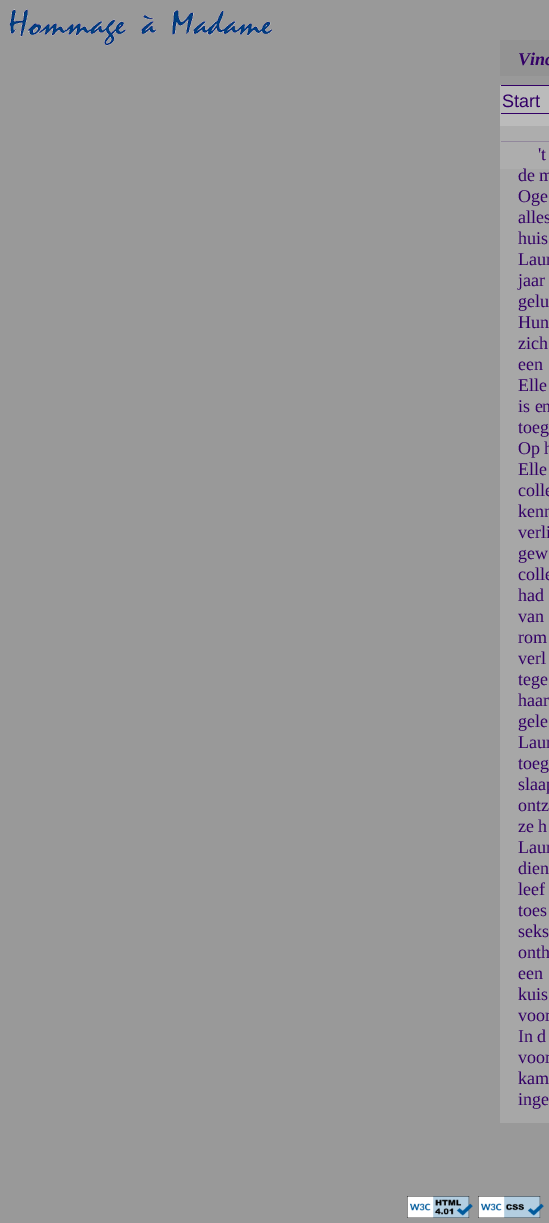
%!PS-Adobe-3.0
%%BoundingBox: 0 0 549 1223
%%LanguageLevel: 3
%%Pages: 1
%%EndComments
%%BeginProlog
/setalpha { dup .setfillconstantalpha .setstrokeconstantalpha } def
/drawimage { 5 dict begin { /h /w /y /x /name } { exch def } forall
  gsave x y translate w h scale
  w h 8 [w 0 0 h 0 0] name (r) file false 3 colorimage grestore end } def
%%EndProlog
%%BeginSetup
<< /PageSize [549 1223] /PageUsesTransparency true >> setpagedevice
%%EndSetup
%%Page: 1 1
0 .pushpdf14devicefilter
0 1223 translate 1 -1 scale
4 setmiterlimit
0.6 setgray
0 0 549 1223 rectfill
(images/1.raw) 9 9 263 37 drawimage
0.576 setgray
500 40 49 36 rectfill
0.733 setgray
500 85 49 84 rectfill
0.2 0 0.4 setrgbcolor
501 85 48 1 rectfill
501 113 48 1 rectfill
501 141 48 1 rectfill
0.8 setalpha
0.667 setgray
500 126 49 997 rectfill
1 setalpha
(images/2.raw) 407 1196 66 22 drawimage
(images/3.raw) 478 1196 66 22 drawimage
/LiberationSerif-BoldItalic [18 0 0 -18 0 0] selectfont
0.2 0 0.4 setrgbcolor
518 65 moveto (Vinc) show
/LiberationSans-Regular [18 0 0 -18 0 0] selectfont
502 107 moveto (Start) show
/LiberationSerif-Regular [18 0 0 -18 0 0] selectfont
538 160 moveto ('t) show
518 181 moveto (de m) show
518 202 moveto (Oge) show
518 223 moveto (alles) show
518 244 moveto (huis) show
518 265 moveto (Laur) show
518 286 moveto (jaar) show
518 307 moveto (gelu) show
518 328 moveto (Hun) show
518 349 moveto (zich) show
518 370 moveto (een) show
518 391 moveto (Elle) show
518 412 moveto (is en) show
518 433 moveto (toeg) show
518 454 moveto (Op h) show
518 475 moveto (Elle) show
518 496 moveto (colle) show
518 517 moveto (kenn) show
518 538 moveto (verli) show
518 559 moveto (gew) show
518 580 moveto (colle) show
518 601 moveto (had) show
518 622 moveto (van) show
518 643 moveto (rom) show
518 664 moveto (verl) show
518 685 moveto (tege) show
518 706 moveto (haar) show
518 727 moveto (gele) show
518 748 moveto (Laur) show
518 769 moveto (toeg) show
518 790 moveto (slaap) show
518 811 moveto (ontz) show
518 832 moveto (ze h) show
518 853 moveto (Laur) show
518 874 moveto (dien) show
518 895 moveto (leef) show
518 916 moveto (toes) show
518 937 moveto (seks) show
518 958 moveto (onth) show
518 979 moveto (een) show
518 1000 moveto (kuis) show
518 1021 moveto (voor) show
518 1042 moveto (In d) show
518 1063 moveto (voor) show
518 1084 moveto (kam) show
518 1105 moveto (inge) show
.poppdf14devicefilter showpage
%%EOF
